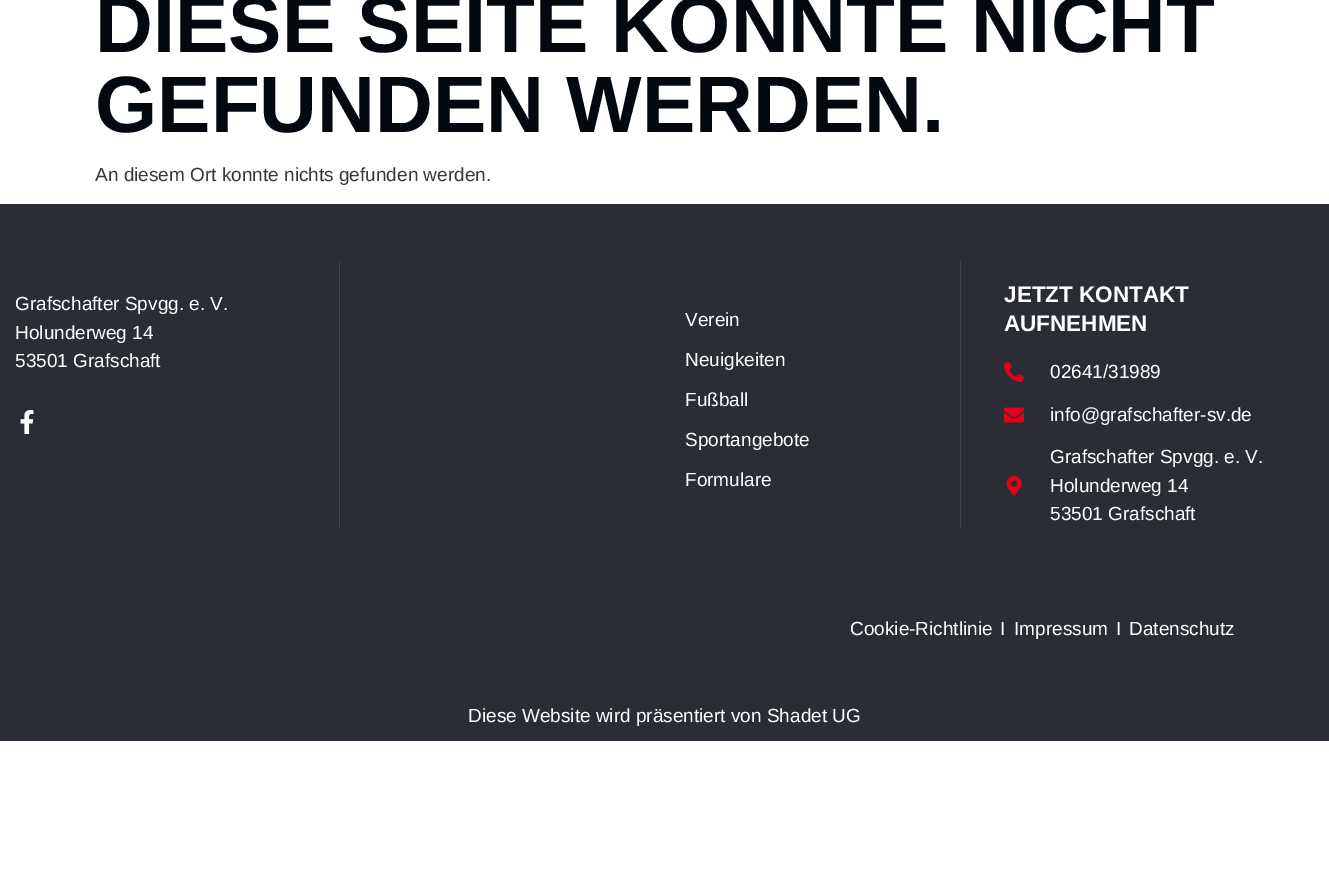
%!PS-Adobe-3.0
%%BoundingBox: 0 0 1329 885
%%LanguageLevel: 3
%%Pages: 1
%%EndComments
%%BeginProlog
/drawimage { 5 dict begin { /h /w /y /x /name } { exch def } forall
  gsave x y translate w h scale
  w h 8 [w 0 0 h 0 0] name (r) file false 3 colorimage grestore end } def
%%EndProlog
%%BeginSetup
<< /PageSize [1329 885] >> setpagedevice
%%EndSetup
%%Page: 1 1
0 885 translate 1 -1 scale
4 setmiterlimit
1 setgray
0 0 1329 885 rectfill
0.165 0.176 0.2 setrgbcolor
0 204 1329 537 rectfill
0.255 0.267 0.286 setrgbcolor
339 261 1 268 rectfill
(images/1.raw) 20 410 14 24 drawimage
960 261 1 268 rectfill
(images/2.raw) 1004 362 20 20 drawimage
(images/3.raw) 1004 407 20 16 drawimage
(images/4.raw) 1006 476 16 20 drawimage
/LiberationSans-Bold [80 0 0 -80 0 0] selectfont
0.016 0.031 0.059 setrgbcolor
95 52 moveto (DIESE SEITE KONNTE NICHT) show
95 132 moveto (GEFUNDEN WERDEN.) show
/LiberationSans-Regular [19 0 0 -19 0 0] selectfont
0.2 0.216 0.247 setrgbcolor
95 181 moveto (An diesem Ort konnte nichts gefunden werden.) show
1 setgray
15 310 moveto (Grafschafter Spvgg. e. V.) show
15 339 moveto (Holunderweg 14) show
15 367 moveto (53501 Grafschaft) show
685 326 moveto (Verein) show
685 366 moveto (Neuigkeiten) show
685 406 moveto (Fußball) show
685 446 moveto (Sportangebote) show
685 486 moveto (Formulare) show
/LiberationSans-Bold [22.5 0 0 -22.5 0 0] selectfont
1004 302 moveto (JETZT KONTAKT) show
1004 331 moveto (AUFNEHMEN) show
/LiberationSans-Regular [19 0 0 -19 0 0] selectfont
1050 378 moveto (02641/31989) show
1050 421 moveto (info@grafschafter-sv.de) show
1050 463 moveto (Grafschafter Spvgg. e. V.) show
1050 492 moveto (Holunderweg 14) show
1050 520 moveto (53501 Grafschaft) show
850 635 moveto (Cookie-Richtlinie) show
1000 635 moveto (I) show
1014 635 moveto (Impressum) show
1116 635 moveto (I) show
1129 635 moveto (Datenschutz) show
468 722 moveto (Diese Website wird präsentiert von Shadet UG) show
showpage
%%EOF
